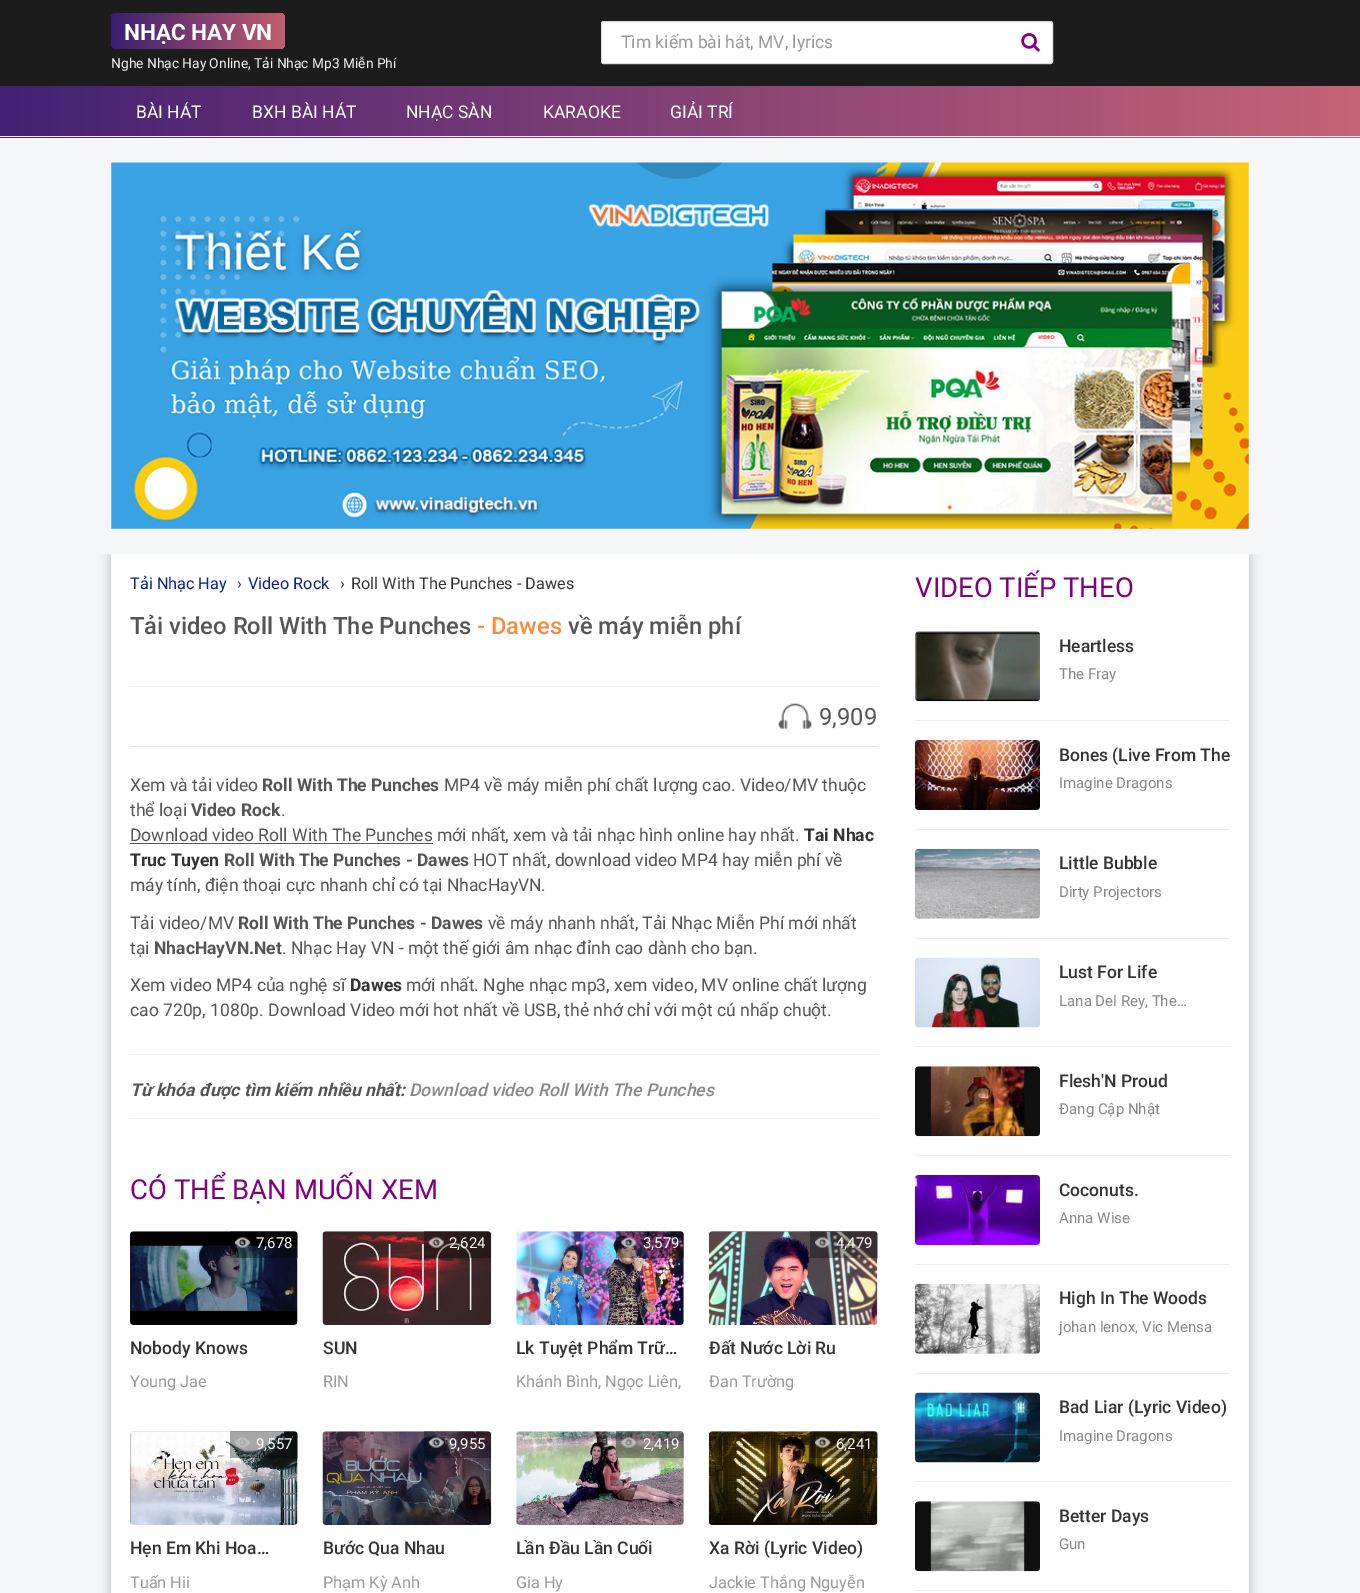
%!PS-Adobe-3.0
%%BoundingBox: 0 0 1360 1593
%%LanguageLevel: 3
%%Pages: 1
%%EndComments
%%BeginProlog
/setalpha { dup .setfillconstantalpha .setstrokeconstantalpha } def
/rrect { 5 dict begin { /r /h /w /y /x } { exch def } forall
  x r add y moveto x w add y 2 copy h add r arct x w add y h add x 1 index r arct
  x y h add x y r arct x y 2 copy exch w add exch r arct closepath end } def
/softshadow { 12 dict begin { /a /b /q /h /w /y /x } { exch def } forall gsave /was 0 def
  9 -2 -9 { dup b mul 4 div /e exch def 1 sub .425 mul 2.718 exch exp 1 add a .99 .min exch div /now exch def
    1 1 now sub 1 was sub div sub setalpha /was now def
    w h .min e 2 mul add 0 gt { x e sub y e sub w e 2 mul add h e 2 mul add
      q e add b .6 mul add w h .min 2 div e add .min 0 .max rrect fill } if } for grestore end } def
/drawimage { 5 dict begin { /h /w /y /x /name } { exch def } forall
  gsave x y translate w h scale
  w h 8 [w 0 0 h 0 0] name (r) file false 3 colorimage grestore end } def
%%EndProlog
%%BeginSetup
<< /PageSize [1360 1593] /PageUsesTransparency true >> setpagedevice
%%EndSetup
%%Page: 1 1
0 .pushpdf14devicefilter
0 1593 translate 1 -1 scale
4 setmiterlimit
0.957 0.965 0.973 setrgbcolor
0 0 1360 1593 rectfill
0.11 setgray
0 0 1360 86 rectfill
gsave 111 13 174 36 6 rrect clip newpath
<< /ShadingType 2 /ColorSpace /DeviceRGB /Coords [111 31 285 31] /Extend [true true] /Function << /FunctionType 2 /Domain [0 1] /C0 [0.227 0.118 0.435] /C1 [0.761 0.373 0.443] /N 1 >> >> shfill grestore
1 setgray
601.5 21.5 451 42 2 rrect gsave fill grestore
0.867 setgray
stroke
(images/1.raw) 1021 33 19 19 drawimage
gsave newpath 0 86 moveto 1360 86 lineto 1360 138 lineto 0 138 lineto closepath clip newpath
<< /ShadingType 2 /ColorSpace /DeviceRGB /Coords [0 111 1360 111] /Extend [true true] /Function << /FunctionType 2 /Domain [0 1] /C0 [0.263 0.125 0.455] /C1 [0.776 0.388 0.459] /N 1 >> >> shfill grestore
0.925 setgray
0 136 1360 1 rectfill
(images/2.raw) 111 162 1138 367 drawimage
gsave
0 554 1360 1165 rectclip
0.471 setgray
111 554 1138 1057 0 6 0.5 softshadow
grestore
1 setgray
111 554 1138 1039 rectfill
0.925 setgray
130 686 748 1 rectfill
130 746 748 1 rectfill
(images/3.raw) 778 703 34 26 drawimage
0.353 setgray
130 843 303 1 rectfill
0.933 setgray
130 1054 748 1 rectfill
130 1118 748 1 rectfill
(images/4.raw) 130 1231 168 94 drawimage
0.34 setalpha
0 setgray
newpath 230 1231 moveto 294 1231 lineto 296 1231 298 1233 298 1235 curveto 298 1258 lineto 230 1258 lineto closepath fill
1 setalpha
(images/5.raw) 235 1237 16 11 drawimage
(images/6.raw) 322 1231 170 94 drawimage
0.34 setalpha
newpath 424 1231 moveto 487 1231 lineto 489 1231 491 1233 491 1235 curveto 491 1258 lineto 424 1258 lineto closepath fill
1 setalpha
(images/7.raw) 428 1237 16 11 drawimage
(images/8.raw) 516 1231 168 94 drawimage
0.34 setalpha
newpath 616 1231 moveto 680 1231 lineto 682 1231 684 1233 684 1235 curveto 684 1258 lineto 616 1258 lineto closepath fill
1 setalpha
(images/9.raw) 621 1237 16 11 drawimage
(images/10.raw) 708 1231 170 94 drawimage
0.34 setalpha
newpath 810 1231 moveto 874 1231 lineto 876 1231 878 1233 878 1235 curveto 878 1258 lineto 810 1258 lineto closepath fill
1 setalpha
(images/11.raw) 815 1237 16 11 drawimage
(images/12.raw) 130 1431 168 94 drawimage
0.34 setalpha
newpath 230 1431 moveto 294 1431 lineto 296 1431 298 1433 298 1435 curveto 298 1458 lineto 230 1458 lineto closepath fill
1 setalpha
(images/13.raw) 235 1437 15 11 drawimage
(images/14.raw) 322 1431 170 94 drawimage
0.34 setalpha
newpath 424 1431 moveto 487 1431 lineto 489 1431 491 1433 491 1435 curveto 491 1458 lineto 424 1458 lineto closepath fill
1 setalpha
(images/15.raw) 428 1437 16 11 drawimage
(images/16.raw) 516 1431 168 94 drawimage
0.34 setalpha
newpath 616 1431 moveto 680 1431 lineto 682 1431 684 1433 684 1435 curveto 684 1458 lineto 616 1458 lineto closepath fill
1 setalpha
(images/17.raw) 621 1437 16 11 drawimage
(images/18.raw) 708 1431 170 94 drawimage
0.34 setalpha
newpath 810 1431 moveto 874 1431 lineto 876 1431 878 1433 878 1435 curveto 878 1458 lineto 810 1458 lineto closepath fill
1 setalpha
(images/19.raw) 815 1437 16 11 drawimage
0.933 setgray
915 720 315 1 rectfill
(images/20.raw) 915 631 125 71 drawimage
915 829 315 1 rectfill
(images/21.raw) 915 740 125 70 drawimage
915 938 315 1 rectfill
(images/22.raw) 915 848 125 71 drawimage
915 1046 315 1 rectfill
(images/23.raw) 915 957 125 71 drawimage
915 1155 315 1 rectfill
(images/24.raw) 915 1066 125 71 drawimage
915 1264 315 1 rectfill
(images/25.raw) 915 1175 125 70 drawimage
915 1373 315 1 rectfill
(images/26.raw) 915 1283 125 71 drawimage
915 1481 315 1 rectfill
(images/27.raw) 915 1392 125 71 drawimage
915 1590 315 1 rectfill
(images/28.raw) 915 1501 125 71 drawimage
/Roboto-Bold [22.5 0 0 -22.5 0 0] selectfont
1 setgray
124 40 moveto (NHẠC HAY VN) show
/Roboto-Regular [13.75 0 0 -13.75 0 0] selectfont
0.949 setgray
111 68 moveto (Nghe Nhạc Hay Online, Tải Nhạc Mp3 Miễn Phí) show
/Roboto-Regular [17.5 0 0 -17.5 0 0] selectfont
0.6 setgray
621 48 moveto (Tìm kiếm bài hát, MV, lyrics) show
1 setgray
136 118 moveto (BÀI HÁT) show
252 118 moveto (BXH BÀI HÁT) show
406 118 moveto (NHẠC SÀN) show
543 118 moveto (KARAOKE) show
670 118 moveto (GIẢI TRÍ) show
/Roboto-Regular [16.25 0 0 -16.25 0 0] selectfont
0.043 0.125 0.533 setrgbcolor
130 589 moveto (Tải Nhạc Hay) show
0.204 setgray
237 589 moveto (›) show
0.043 0.125 0.533 setrgbcolor
248 589 moveto (Video Rock) show
0.204 setgray
340 589 moveto (›) show
351 589 moveto (Roll With The Punches - Dawes) show
/Roboto-Medium [23.75 0 0 -23.75 0 0] selectfont
0.333 setgray
130 634 moveto (Tải video Roll With The Punches) show
0.973 0.545 0.259 setrgbcolor
477 634 moveto (- Dawes) show
0.333 setgray
568 634 moveto (về máy miễn phí) show
/Roboto-Regular [23.75 0 0 -23.75 0 0] selectfont
819 725 moveto (9,909) show
/Roboto-Regular [17.5 0 0 -17.5 0 0] selectfont
130 791 moveto (Xem và tải video) show
/Roboto-Bold [17.5 0 0 -17.5 0 0] selectfont
262 791 moveto (Roll With The Punches) show
/Roboto-Regular [17.5 0 0 -17.5 0 0] selectfont
444 791 moveto (MP4 về máy miễn phí chất lượng cao. Video/MV thuộc) show
130 816 moveto (thể loại) show
/Roboto-Bold [17.5 0 0 -17.5 0 0] selectfont
191 816 moveto (Video Rock) show
/Roboto-Regular [17.5 0 0 -17.5 0 0] selectfont
281 816 moveto (.) show
130 841 moveto (Download video Roll With The Punches mới nhất, xem và tải nhạc hình online hay nhất.) show
/Roboto-Bold [17.5 0 0 -17.5 0 0] selectfont
0.204 setgray
804 841 moveto (Tai Nhac) show
130 866 moveto (Truc Tuyen) show
0.333 setgray
224 866 moveto (Roll With The Punches - Dawes) show
/Roboto-Regular [17.5 0 0 -17.5 0 0] selectfont
473 866 moveto (HOT nhất, download video MP4 hay miễn phí về) show
130 891 moveto (máy tính, điện thoại cực nhanh chỉ có tại NhacHayVN.) show
130 929 moveto (Tải video/MV) show
/Roboto-Bold [17.5 0 0 -17.5 0 0] selectfont
238 929 moveto (Roll With The Punches - Dawes) show
/Roboto-Regular [17.5 0 0 -17.5 0 0] selectfont
488 929 moveto (về máy nhanh nhất, Tải Nhạc Miễn Phí mới nhất) show
130 954 moveto (tại) show
/Roboto-Bold [17.5 0 0 -17.5 0 0] selectfont
154 954 moveto (NhacHayVN.Net) show
/Roboto-Regular [17.5 0 0 -17.5 0 0] selectfont
282 954 moveto (. Nhạc Hay VN - một thế giới âm nhạc đỉnh cao dành cho bạn.) show
130 991 moveto (Xem video MP4 của nghệ sĩ) show
/Roboto-Bold [17.5 0 0 -17.5 0 0] selectfont
0.204 setgray
350 991 moveto (Dawes) show
/Roboto-Regular [17.5 0 0 -17.5 0 0] selectfont
0.333 setgray
406 991 moveto (mới nhất. Nghe nhạc mp3, xem video, MV online chất lượng) show
130 1016 moveto (cao 720p, 1080p. Download Video mới hot nhất về USB, thẻ nhớ chỉ với một cú nhấp chuột.) show
/Roboto-BoldItalic [17.5 0 0 -17.5 0 0] selectfont
130 1096 moveto (Từ khóa được tìm kiếm nhiều nhất:) show
/Roboto-MediumItalic [17.5 0 0 -17.5 0 0] selectfont
0.533 setgray
409 1096 moveto (Download video Roll With The Punches) show
/Roboto-Regular [27.5 0 0 -27.5 0 0] selectfont
0.502 0 0.502 setrgbcolor
130 1199 moveto (CÓ THỂ BẠN MUỐN XEM) show
/Roboto-Regular [15 0 0 -15 0 0] selectfont
1 setgray
256 1248 moveto (7,678) show
/Roboto-Medium [17.5 0 0 -17.5 0 0] selectfont
0.204 setgray
130 1354 moveto (Nobody Knows) show
/Roboto-Regular [16.25 0 0 -16.25 0 0] selectfont
0.6 setgray
130 1387 moveto (Young Jae) show
/Roboto-Regular [15 0 0 -15 0 0] selectfont
1 setgray
449 1248 moveto (2,624) show
/Roboto-Medium [17.5 0 0 -17.5 0 0] selectfont
0.204 setgray
323 1354 moveto (SUN) show
/Roboto-Regular [16.25 0 0 -16.25 0 0] selectfont
0.6 setgray
323 1387 moveto (RIN) show
/Roboto-Regular [15 0 0 -15 0 0] selectfont
1 setgray
643 1248 moveto (3,579) show
/Roboto-Medium [17.5 0 0 -17.5 0 0] selectfont
0.204 setgray
516 1354 moveto (Lk Tuyệt Phẩm Trữ…) show
/Roboto-Regular [16.25 0 0 -16.25 0 0] selectfont
0.6 setgray
516 1387 moveto (Khánh Bình, Ngọc Liên,) show
/Roboto-Regular [15 0 0 -15 0 0] selectfont
1 setgray
836 1248 moveto (4,479) show
/Roboto-Medium [17.5 0 0 -17.5 0 0] selectfont
0.204 setgray
709 1354 moveto (Đất Nước Lời Ru) show
/Roboto-Regular [16.25 0 0 -16.25 0 0] selectfont
0.6 setgray
709 1387 moveto (Đan Trường) show
/Roboto-Regular [15 0 0 -15 0 0] selectfont
1 setgray
256 1449 moveto (9,557) show
/Roboto-Medium [17.5 0 0 -17.5 0 0] selectfont
0.204 setgray
130 1554 moveto (Hẹn Em Khi Hoa…) show
/Roboto-Regular [16.25 0 0 -16.25 0 0] selectfont
0.6 setgray
130 1588 moveto (Tuấn Hii) show
/Roboto-Regular [15 0 0 -15 0 0] selectfont
1 setgray
449 1449 moveto (9,955) show
/Roboto-Medium [17.5 0 0 -17.5 0 0] selectfont
0.204 setgray
323 1554 moveto (Bước Qua Nhau) show
/Roboto-Regular [16.25 0 0 -16.25 0 0] selectfont
0.6 setgray
323 1588 moveto (Phạm Kỳ Anh) show
/Roboto-Regular [15 0 0 -15 0 0] selectfont
1 setgray
643 1449 moveto (2,419) show
/Roboto-Medium [17.5 0 0 -17.5 0 0] selectfont
0.204 setgray
516 1554 moveto (Lần Đầu Lần Cuối) show
/Roboto-Regular [16.25 0 0 -16.25 0 0] selectfont
0.6 setgray
516 1588 moveto (Gia Hy) show
/Roboto-Regular [15 0 0 -15 0 0] selectfont
1 setgray
836 1449 moveto (6,241) show
/Roboto-Medium [17.5 0 0 -17.5 0 0] selectfont
0.204 setgray
709 1554 moveto (Xa Rời \(Lyric Video\)) show
/Roboto-Regular [16.25 0 0 -16.25 0 0] selectfont
0.6 setgray
709 1588 moveto (Jackie Thắng Nguyễn) show
/Roboto-Regular [27.5 0 0 -27.5 0 0] selectfont
0.502 0 0.502 setrgbcolor
915 597 moveto (VIDEO TIẾP THEO) show
/Roboto-Medium [17.5 0 0 -17.5 0 0] selectfont
0.204 setgray
1059 652 moveto (Heartless) show
/Roboto-Regular [15 0 0 -15 0 0] selectfont
0.533 setgray
1059 679 moveto (The Fray) show
/Roboto-Medium [17.5 0 0 -17.5 0 0] selectfont
0.204 setgray
1059 761 moveto (Bones \(Live From The) show
/Roboto-Regular [15 0 0 -15 0 0] selectfont
0.533 setgray
1059 788 moveto (Imagine Dragons) show
/Roboto-Medium [17.5 0 0 -17.5 0 0] selectfont
0.204 setgray
1059 869 moveto (Little Bubble) show
/Roboto-Regular [15 0 0 -15 0 0] selectfont
0.533 setgray
1059 897 moveto (Dirty Projectors) show
/Roboto-Medium [17.5 0 0 -17.5 0 0] selectfont
0.204 setgray
1059 978 moveto (Lust For Life) show
/Roboto-Regular [15 0 0 -15 0 0] selectfont
0.533 setgray
1059 1006 moveto (Lana Del Rey, The…) show
/Roboto-Medium [17.5 0 0 -17.5 0 0] selectfont
0.204 setgray
1059 1087 moveto (Flesh'N Proud) show
/Roboto-Regular [15 0 0 -15 0 0] selectfont
0.533 setgray
1059 1114 moveto (Đang Cập Nhật) show
/Roboto-Medium [17.5 0 0 -17.5 0 0] selectfont
0.204 setgray
1059 1196 moveto (Coconuts.) show
/Roboto-Regular [15 0 0 -15 0 0] selectfont
0.533 setgray
1059 1223 moveto (Anna Wise) show
/Roboto-Medium [17.5 0 0 -17.5 0 0] selectfont
0.204 setgray
1059 1304 moveto (High In The Woods) show
/Roboto-Regular [15 0 0 -15 0 0] selectfont
0.533 setgray
1059 1332 moveto (johan lenox, Vic Mensa) show
/Roboto-Medium [17.5 0 0 -17.5 0 0] selectfont
0.204 setgray
1059 1413 moveto (Bad Liar \(Lyric Video\)) show
/Roboto-Regular [15 0 0 -15 0 0] selectfont
0.533 setgray
1059 1441 moveto (Imagine Dragons) show
/Roboto-Medium [17.5 0 0 -17.5 0 0] selectfont
0.204 setgray
1059 1522 moveto (Better Days) show
/Roboto-Regular [15 0 0 -15 0 0] selectfont
0.533 setgray
1059 1549 moveto (Gun) show
.poppdf14devicefilter showpage
%%EOF
